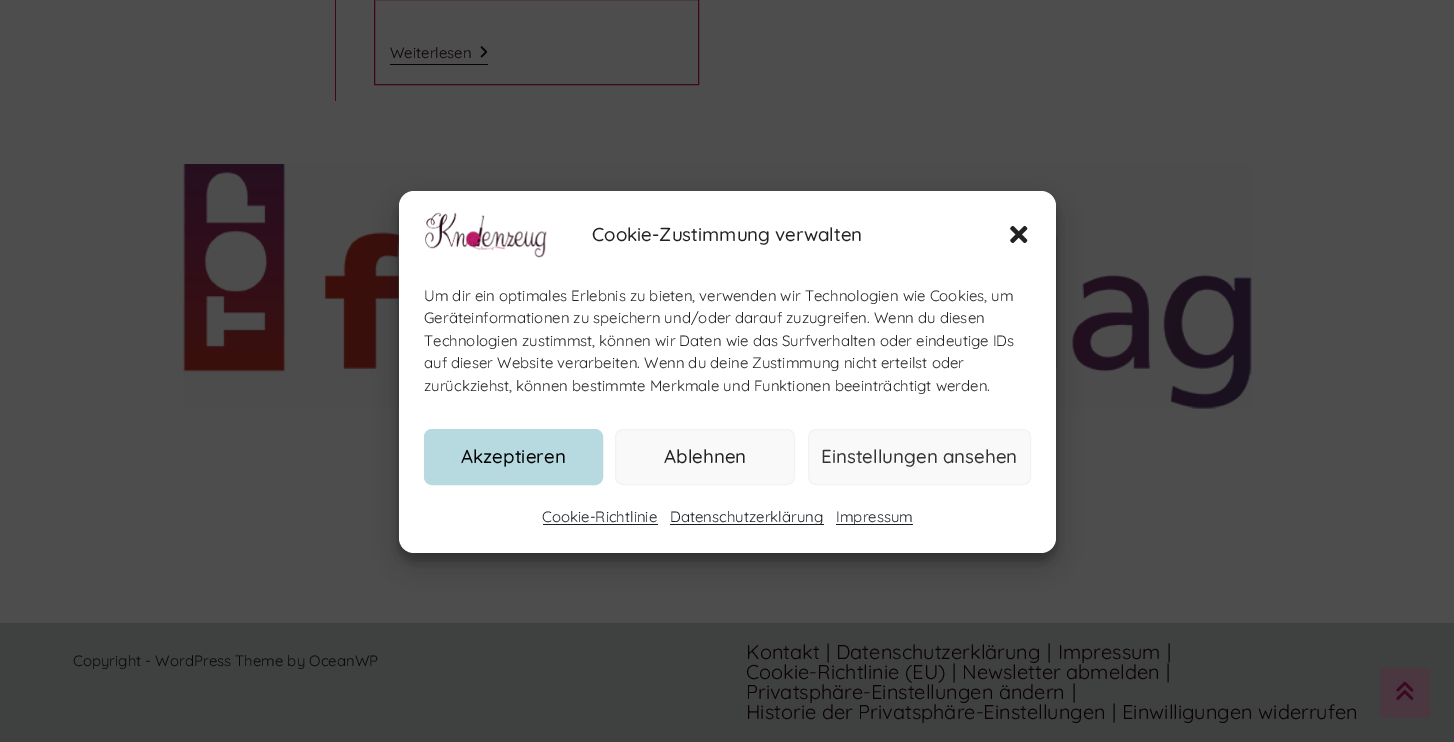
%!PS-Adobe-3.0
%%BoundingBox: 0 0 1454 742
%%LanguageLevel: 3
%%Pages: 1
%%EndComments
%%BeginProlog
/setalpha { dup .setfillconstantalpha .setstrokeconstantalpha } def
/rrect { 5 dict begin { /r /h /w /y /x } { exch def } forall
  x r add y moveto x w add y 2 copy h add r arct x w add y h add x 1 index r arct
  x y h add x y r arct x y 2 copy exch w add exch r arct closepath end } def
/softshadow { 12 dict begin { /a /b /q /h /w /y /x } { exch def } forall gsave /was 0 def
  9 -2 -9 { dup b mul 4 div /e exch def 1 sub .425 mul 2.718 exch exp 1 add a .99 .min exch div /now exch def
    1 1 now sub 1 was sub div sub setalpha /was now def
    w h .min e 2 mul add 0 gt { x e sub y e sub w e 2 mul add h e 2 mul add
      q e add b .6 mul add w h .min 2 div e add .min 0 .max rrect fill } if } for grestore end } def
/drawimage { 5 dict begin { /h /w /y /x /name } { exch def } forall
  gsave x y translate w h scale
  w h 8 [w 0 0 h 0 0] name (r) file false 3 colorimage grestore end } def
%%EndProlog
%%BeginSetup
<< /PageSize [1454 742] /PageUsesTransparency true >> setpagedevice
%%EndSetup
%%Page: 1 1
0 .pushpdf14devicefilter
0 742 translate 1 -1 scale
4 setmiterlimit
0.302 setgray
0 0 1454 742 rectfill
0.239 0.027 0.129 setrgbcolor
335 0 1 101 rectfill
374.5 -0.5 324 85 rectstroke
0.031 0.008 0.031 setrgbcolor
390 64 98 1 rectfill
(images/1.raw) 480 46 8 12 drawimage
(images/2.raw) 183 164 1069 245 drawimage
0.247 0.251 0.251 setrgbcolor
0 623 1454 119 rectfill
0 setgray
399 199 657 361 15 4 0.23 softshadow
399 204 657 361 15 12.5 0.19 softshadow
1 setgray
399 191 657 362 15 rrect fill
(images/3.raw) 425 212 122 46 drawimage
(images/4.raw) 1010 225 18 19 drawimage
0.714 0.855 0.875 setrgbcolor
424.5 429.5 178 55 7.5 rrect gsave fill grestore
stroke
0.976 setgray
615.5 429.5 179 55 7.5 rrect gsave fill grestore
0.949 setgray
stroke
0.976 setgray
808.5 429.5 222 55 7.5 rrect gsave fill grestore
0.949 setgray
stroke
0.098 0.118 0.137 setrgbcolor
543 524 115 1 rectfill
670 524 154 1 rectfill
836 524 77 1 rectfill
0.29 0.216 0.251 setrgbcolor
1380 668 50 50 2.5 rrect fill
(images/5.raw) 1396 681 18 19 drawimage
/Quicksand-Regular [15 0 0 -15 0 0] selectfont
0.039 0.008 0.02 setrgbcolor
390 58 moveto (Weiterlesen) show
0.039 0.027 0.043 setrgbcolor
73 666 moveto (Copyright - WordPress Theme by OceanWP) show
/Quicksand-Regular [20 0 0 -20 0 0] selectfont
0.039 0.008 0.02 setrgbcolor
746 659 moveto (Kontakt) show
0.039 0.027 0.043 setrgbcolor
826 659 moveto (|) show
0.039 0.008 0.02 setrgbcolor
836 659 moveto (Datenschutzerklärung) show
0.039 0.027 0.043 setrgbcolor
1047 659 moveto (|) show
0.039 0.008 0.02 setrgbcolor
1058 659 moveto (Impressum) show
0.039 0.027 0.043 setrgbcolor
1167 659 moveto (|) show
0.039 0.008 0.02 setrgbcolor
746 679 moveto (Cookie-Richtlinie \(EU\)) show
0.039 0.027 0.043 setrgbcolor
952 679 moveto (|) show
0.039 0.008 0.02 setrgbcolor
962 679 moveto (Newsletter abmelden) show
0.039 0.027 0.043 setrgbcolor
1166 679 moveto (|) show
0.039 0.008 0.02 setrgbcolor
746 699 moveto (Privatsphäre-Einstellungen ändern) show
0.039 0.027 0.043 setrgbcolor
1072 699 moveto (|) show
0.039 0.008 0.02 setrgbcolor
746 719 moveto (Historie der Privatsphäre-Einstellungen) show
0.039 0.027 0.043 setrgbcolor
1112 719 moveto (|) show
0.039 0.008 0.02 setrgbcolor
1122 719 moveto (Einwilligungen widerrufen) show
/Quicksand-Medium [18.75 0 0 -18.75 0 0] selectfont
0.133 setgray
592 241 moveto (Cookie-Zustimmung verwalten) show
/Quicksand-Regular [15 0 0 -15 0 0] selectfont
424 301 moveto (Um dir ein optimales Erlebnis zu bieten, verwenden wir Technologien wie Cookies, um) show
424 323 moveto (Geräteinformationen zu speichern und/oder darauf zuzugreifen. Wenn du diesen) show
424 346 moveto (Technologien zustimmst, können wir Daten wie das Surfverhalten oder eindeutige IDs) show
424 368 moveto (auf dieser Website verarbeiten. Wenn du deine Zustimmung nicht erteilst oder) show
424 391 moveto (zurückziehst, können bestimmte Merkmale und Funktionen beeinträchtigt werden.) show
/Quicksand-Medium [18.75 0 0 -18.75 0 0] selectfont
0 setgray
461 463 moveto (Akzeptieren) show
0.133 setgray
664 463 moveto (Ablehnen) show
0.2 setgray
821 463 moveto (Einstellungen ansehen) show
/Quicksand-Regular [15 0 0 -15 0 0] selectfont
0.098 0.118 0.137 setrgbcolor
542 522 moveto (Cookie-Richtlinie) show
670 522 moveto (Datenschutzerklärung) show
836 522 moveto (Impressum) show
.poppdf14devicefilter showpage
%%EOF
